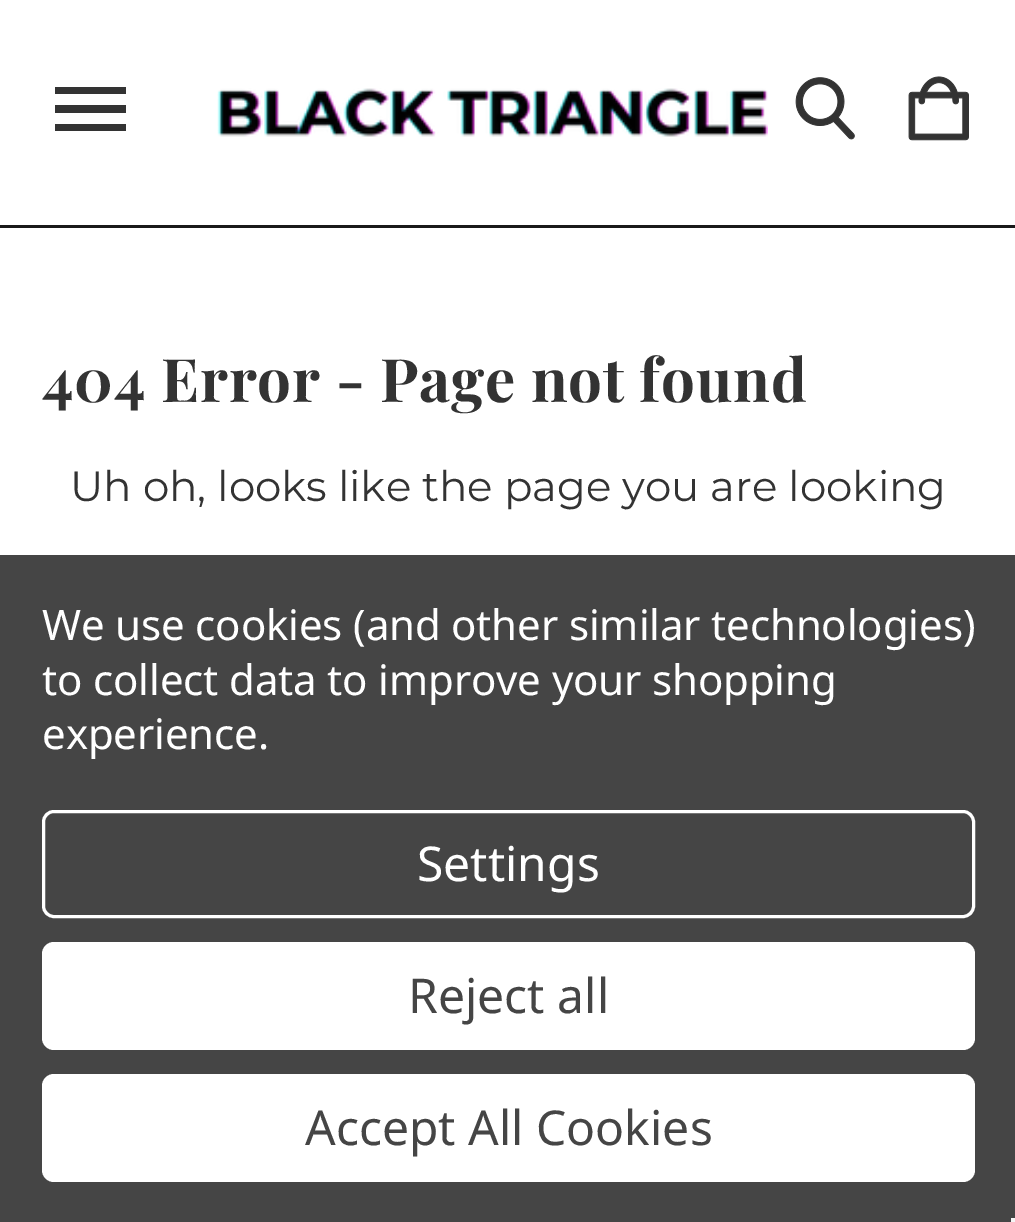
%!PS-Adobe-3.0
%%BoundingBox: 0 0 1015 1222
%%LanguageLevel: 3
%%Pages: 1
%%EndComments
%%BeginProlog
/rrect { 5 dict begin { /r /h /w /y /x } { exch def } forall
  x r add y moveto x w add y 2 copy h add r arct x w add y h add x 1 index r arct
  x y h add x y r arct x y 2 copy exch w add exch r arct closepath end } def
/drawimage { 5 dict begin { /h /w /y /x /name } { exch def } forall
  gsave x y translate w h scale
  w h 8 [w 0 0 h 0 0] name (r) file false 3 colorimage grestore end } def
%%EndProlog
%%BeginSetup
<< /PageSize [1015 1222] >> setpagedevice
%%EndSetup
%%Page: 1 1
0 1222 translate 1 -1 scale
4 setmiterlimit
1 setgray
0 0 1015 1222 rectfill
0.098 setgray
0 225 1015 3 rectfill
0.2 setgray
55 87 71 7 rectfill
55 105 71 8 rectfill
55 124 71 7 rectfill
(images/1.raw) 217 88 551 49 drawimage
(images/2.raw) 795 77 60 63 drawimage
(images/3.raw) 908 76 61 65 drawimage
0.271 setgray
0 555 1015 667 rectfill
1 setgray
3 setlinewidth
43.5 811.5 930 105 10.5 rrect stroke
42 942 933 108 12 rrect fill
42 1074 933 108 12 rrect fill
0.961 setgray
1011 1218 4 4 rectfill
/PlayfairDisplay-Bold [60 0 0 -60 0 0] selectfont
0.2 setgray
42 402 moveto 0.75 0 (404 Error - Page not found) ashow
/Montserrat-Regular [42 0 0 -42 0 0] selectfont
70 501 moveto (Uh oh, looks like the page you are looking) show
/NotoSans-Regular [42 0 0 -42 0 0] selectfont
1 setgray
42 640 moveto -0.15 0 (We use cookies \(and other similar technologies\)) ashow
42 695 moveto -0.15 0 (to collect data to improve your shopping) ashow
42 749 moveto -0.15 0 (experience.) ashow
/NotoSans-Regular [48 0 0 -48 0 0] selectfont
417 881 moveto (Settings) show
0.271 setgray
408 1013 moveto (Reject all) show
305 1145 moveto (Accept All Cookies) show
showpage
%%EOF
